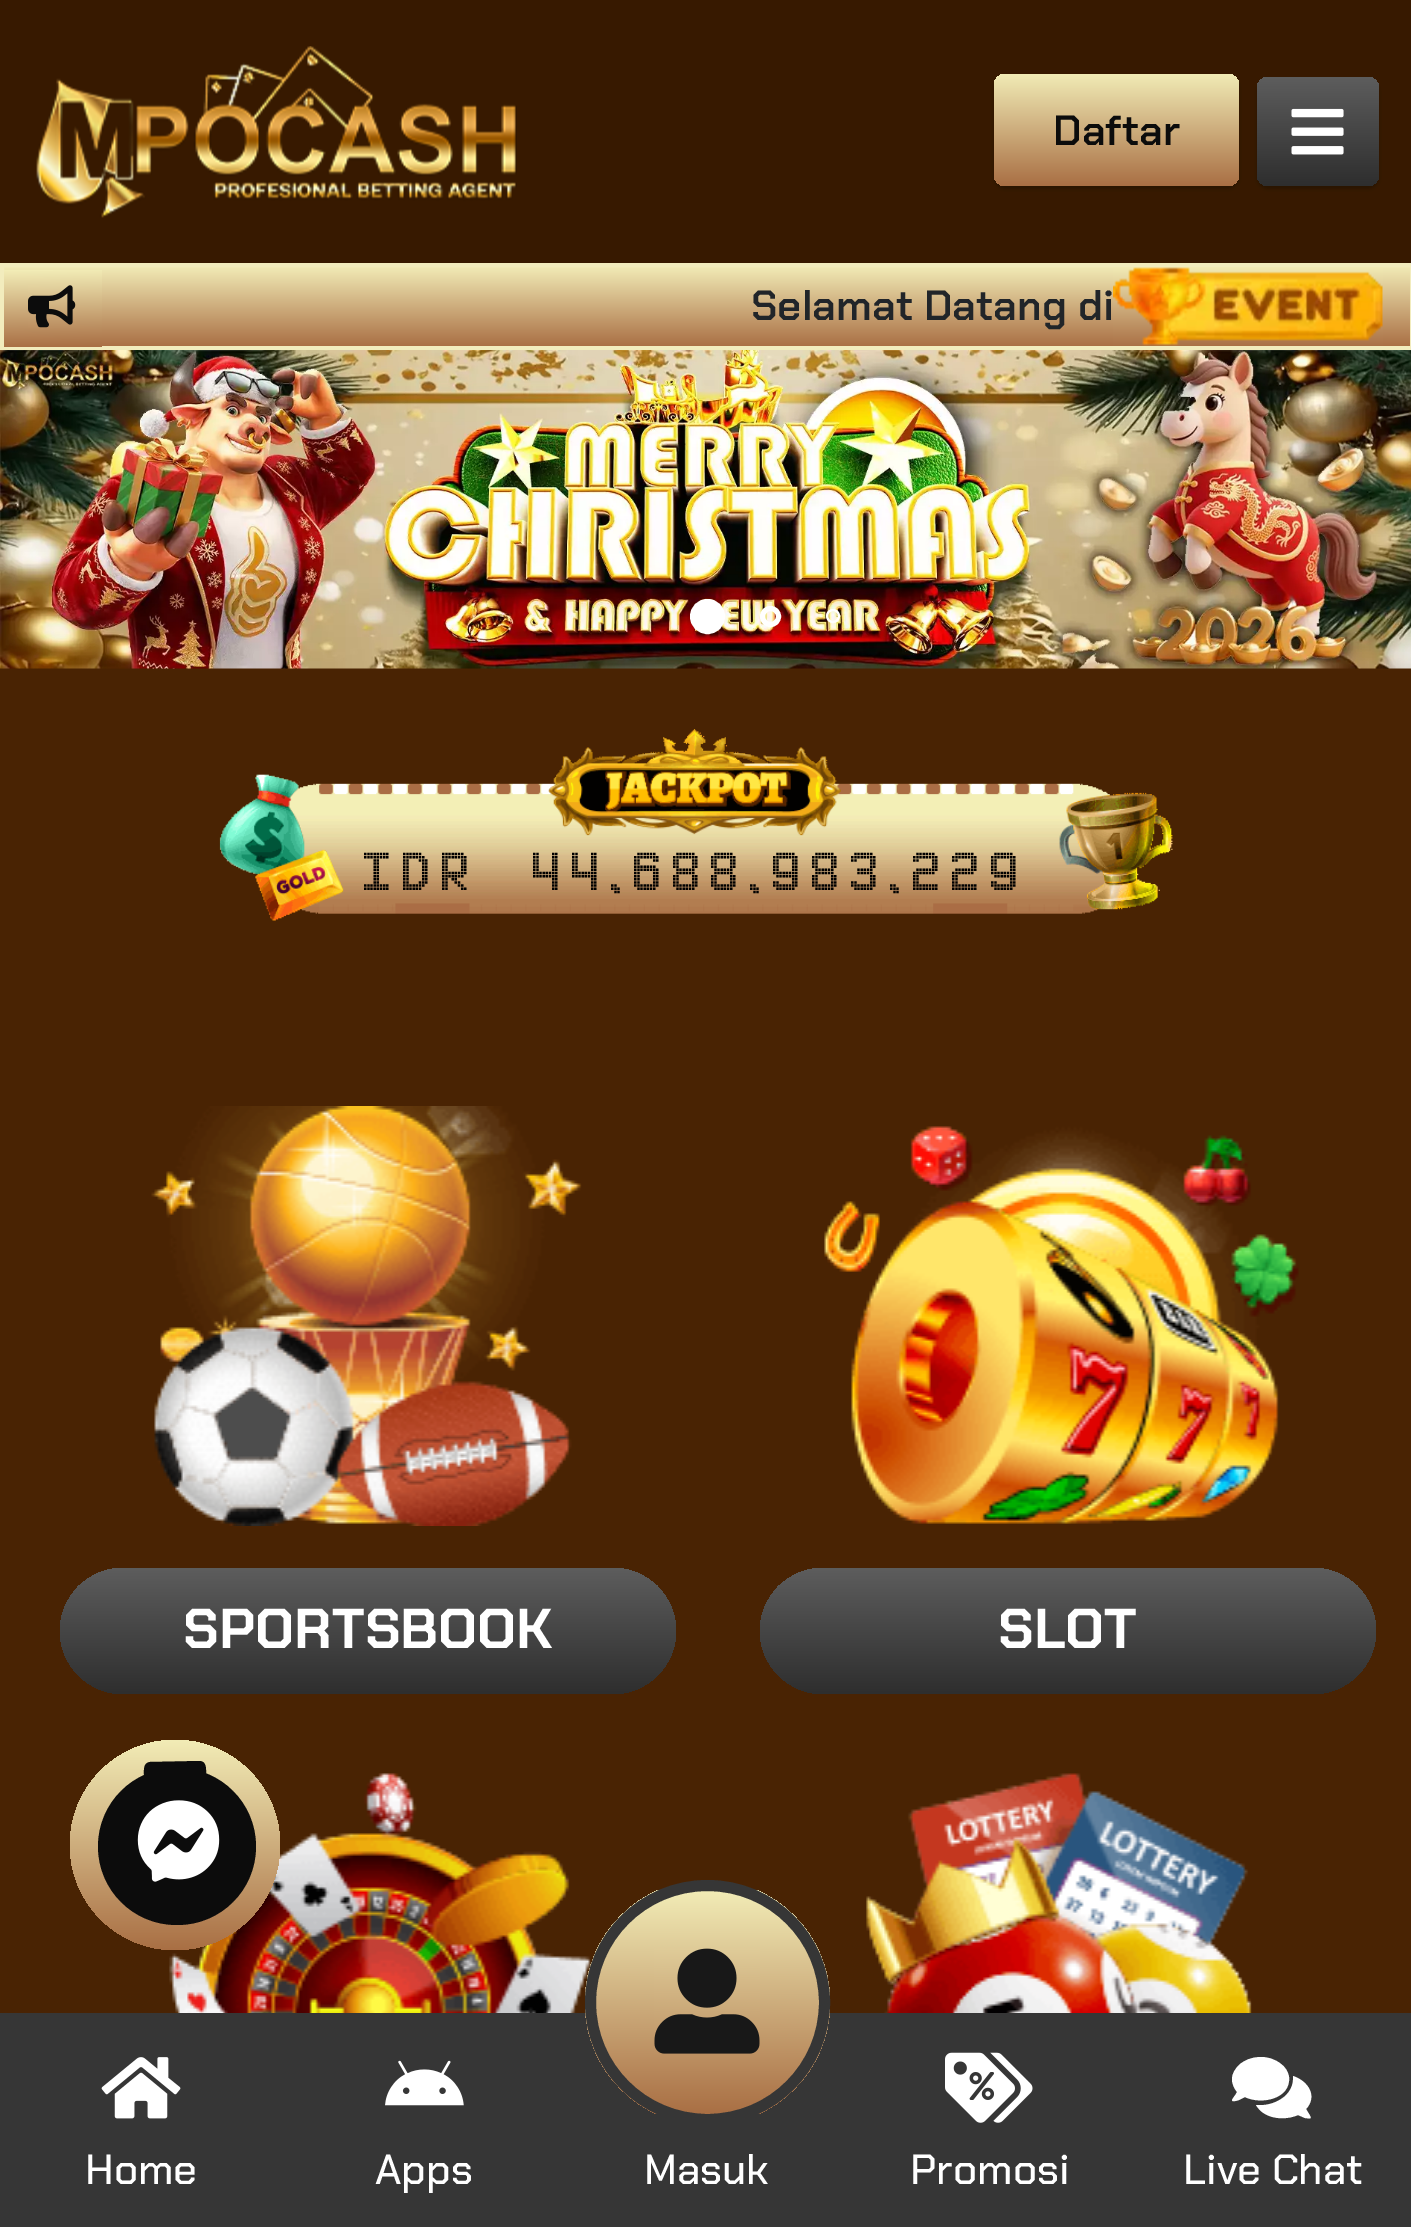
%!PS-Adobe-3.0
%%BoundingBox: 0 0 1411 2227
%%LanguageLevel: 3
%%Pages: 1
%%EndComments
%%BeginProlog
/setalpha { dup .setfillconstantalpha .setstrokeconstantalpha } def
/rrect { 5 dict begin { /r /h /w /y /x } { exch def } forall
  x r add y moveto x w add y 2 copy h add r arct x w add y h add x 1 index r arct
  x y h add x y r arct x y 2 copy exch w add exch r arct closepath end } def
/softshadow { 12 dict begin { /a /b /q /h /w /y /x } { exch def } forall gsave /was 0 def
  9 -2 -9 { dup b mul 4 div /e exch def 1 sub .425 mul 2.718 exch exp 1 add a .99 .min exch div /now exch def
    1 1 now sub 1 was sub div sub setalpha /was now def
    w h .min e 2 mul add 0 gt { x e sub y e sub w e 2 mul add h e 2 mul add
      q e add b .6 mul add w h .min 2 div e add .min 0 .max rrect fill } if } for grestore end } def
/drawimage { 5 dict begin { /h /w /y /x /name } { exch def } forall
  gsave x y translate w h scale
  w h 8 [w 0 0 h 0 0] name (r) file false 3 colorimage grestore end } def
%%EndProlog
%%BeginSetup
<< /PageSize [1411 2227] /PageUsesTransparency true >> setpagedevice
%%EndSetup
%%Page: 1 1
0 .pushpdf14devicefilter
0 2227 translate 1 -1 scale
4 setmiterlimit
0.286 0.137 0.012 setrgbcolor
0 0 1411 2227 rectfill
0.216 0.098 0 setrgbcolor
0 0 1411 263 rectfill
(images/1.raw) 36 46 481 172 drawimage
0 setgray
994 77 245 112 11 2 0.25 softshadow
gsave 994 74 245 112 11 rrect clip newpath
<< /ShadingType 2 /ColorSpace /DeviceRGB /Coords [1117 73 1117 186] /Extend [true true] /Function << /FunctionType 2 /Domain [0 1] /C0 [0.949 0.925 0.714] /C1 [0.663 0.435 0.267] /N 1 >> >> shfill grestore
1257 81 122 108 11 2 0.25 softshadow
gsave 1257 77 122 109 11 rrect clip newpath
<< /ShadingType 2 /ColorSpace /DeviceRGB /Coords [1318 77 1318 186] /Extend [true true] /Function << /FunctionType 2 /Domain [0 1] /C0 [0.365 0.365 0.365] /C1 [0.18 0.18 0.18] /N 1 >> >> shfill grestore
(images/2.raw) 1291 108 53 47 drawimage
gsave newpath 4 267 moveto 1410 267 lineto 1410 346 lineto 4 346 lineto closepath clip newpath
<< /ShadingType 2 /ColorSpace /DeviceRGB /Coords [707 266 707 347] /Extend [true true] /Function << /FunctionType 2 /Domain [0 1] /C0 [0.949 0.925 0.714] /C1 [0.663 0.435 0.267] /N 1 >> >> shfill grestore
0.949 0.925 0.741 setrgbcolor
4 setlinewidth
2 265 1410 83 rectstroke
gsave newpath 4 270 moveto 102 270 lineto 102 347 lineto 4 347 lineto closepath clip newpath
<< /ShadingType 2 /ColorSpace /DeviceRGB /Coords [52 270 53 347] /Extend [true true] /Function << /FunctionType 2 /Domain [0 1] /C0 [0.949 0.925 0.714] /C1 [0.663 0.435 0.267] /N 1 >> >> shfill grestore
(images/3.raw) 28 285 48 43 drawimage
(images/4.raw) 1113 267 270 79 drawimage
(images/5.raw) 0 350 1411 319 drawimage
1 setgray
newpath 707.5 616.5 14 0 360 arc closepath gsave fill grestore
7 setlinewidth
stroke
5 setlinewidth
newpath 770.5 616.5 8 0 360 arc closepath stroke
2 setlinewidth
newpath 833 616 6 0 360 arc closepath stroke
(images/6.raw) 219 729 954 192 drawimage
(images/7.raw) 151 1106 431 420 drawimage
gsave 60 1568 616 126 63 rrect clip newpath
<< /ShadingType 2 /ColorSpace /DeviceRGB /Coords [368 1568 368 1694] /Extend [true true] /Function << /FunctionType 2 /Domain [0 1] /C0 [0.365 0.365 0.365] /C1 [0.18 0.18 0.18] /N 1 >> >> shfill grestore
(images/8.raw) 824 1126 475 398 drawimage
gsave 760 1568 616 126 63 rrect clip newpath
<< /ShadingType 2 /ColorSpace /DeviceRGB /Coords [1068 1568 1068 1694] /Extend [true true] /Function << /FunctionType 2 /Domain [0 1] /C0 [0.365 0.365 0.365] /C1 [0.18 0.18 0.18] /N 1 >> >> shfill grestore
(images/9.raw) 169 1773 422 240 drawimage
(images/10.raw) 866 1773 386 240 drawimage
gsave newpath 175 1845 105 0 360 arc closepath clip newpath
<< /ShadingType 2 /ColorSpace /DeviceRGB /Coords [175 1740 175 1950] /Extend [true true] /Function << /FunctionType 2 /Domain [0 1] /C0 [0.949 0.925 0.714] /C1 [0.663 0.435 0.267] /N 1 >> >> shfill grestore
0.047 setgray
newpath 199 1761 moveto 207 1761 206 1769 206 1775 curveto 206 1787 lineto 206 1816 209 1813 181 1813 curveto 168 1822 lineto 165 1825 163 1826 163 1821 curveto 163 1813 lineto 150 1812 lineto 143 1811 144 1804 144 1799 curveto 144 1775 lineto 144 1770 143 1763 150 1762 curveto closepath fill
98 1768 158 157 78.5 rrect fill
(images/11.raw) 137 1800 83 82 drawimage
0.212 setgray
0 2013 1411 214 rectfill
(images/12.raw) 101 2057 80 62 drawimage
(images/13.raw) 385 2060 79 46 drawimage
gsave
585 1880 245 245 122.5 rrect clip newpath
gsave newpath 585 1890 moveto 830 1890 lineto 830 2114 lineto 585 2114 lineto closepath clip newpath
<< /ShadingType 2 /ColorSpace /DeviceRGB /Coords [707 1890 707 2114] /Extend [true true] /Function << /FunctionType 2 /Domain [0 1] /C0 [0.949 0.925 0.714] /C1 [0.663 0.435 0.267] /N 1 >> >> shfill grestore
grestore
11 setlinewidth
newpath 707.5 2002.5 117 0 360 arc closepath stroke
(images/14.raw) 654 1948 106 106 drawimage
(images/15.raw) 945 2052 88 71 drawimage
(images/16.raw) 969 2072 25 28 drawimage
1 setgray
newpath 1281 2064 moveto 1285 2067 1288 2071 1289 2077 curveto 1291 2099 1261 2105 1245 2097 curveto 1239 2100 lineto 1226 2104 1235 2097 1237 2092 curveto 1234 2088 1232 2084 1232 2079 curveto 1232 2074 1235 2069 1239 2065 curveto 1250 2055 1269 2054 1281 2064 curveto closepath 1306 2109 moveto 1309 2114 lineto 1311 2118 1313 2119 1305 2118 curveto 1298 2115 lineto 1284 2121 1264 2119 1256 2105 curveto 1273 2107 1295 2096 1293 2076 curveto 1308 2081 1318 2096 1306 2109 curveto closepath fill
/ChakraPetch-SemiBold [42 0 0 -42 0 0] selectfont
0.047 setgray
1053 145 moveto (Daftar) show
0.129 0.145 0.161 setrgbcolor
751 320 moveto (Selamat Datang di) show
/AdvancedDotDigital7-Bold [31.5 0 0 -31.5 0 0] selectfont
0 setgray
364 890 moveto 10.5 0 (IDR) ashow
533 890 moveto 10.5 0 (44,688,983,229) ashow
/ChakraPetch-Bold [56 0 0 -56 0 0] selectfont
1 setgray
183 1648 moveto (SPORTSBOOK) show
998 1648 moveto (SLOT) show
/ChakraPetch-Medium [42 0 0 -42 0 0] selectfont
85 2184 moveto (Home) show
375 2184 moveto (Apps) show
644 2184 moveto (Masuk) show
910 2184 moveto (Promosi) show
1183 2184 moveto (Live Chat) show
.poppdf14devicefilter showpage
%%EOF
